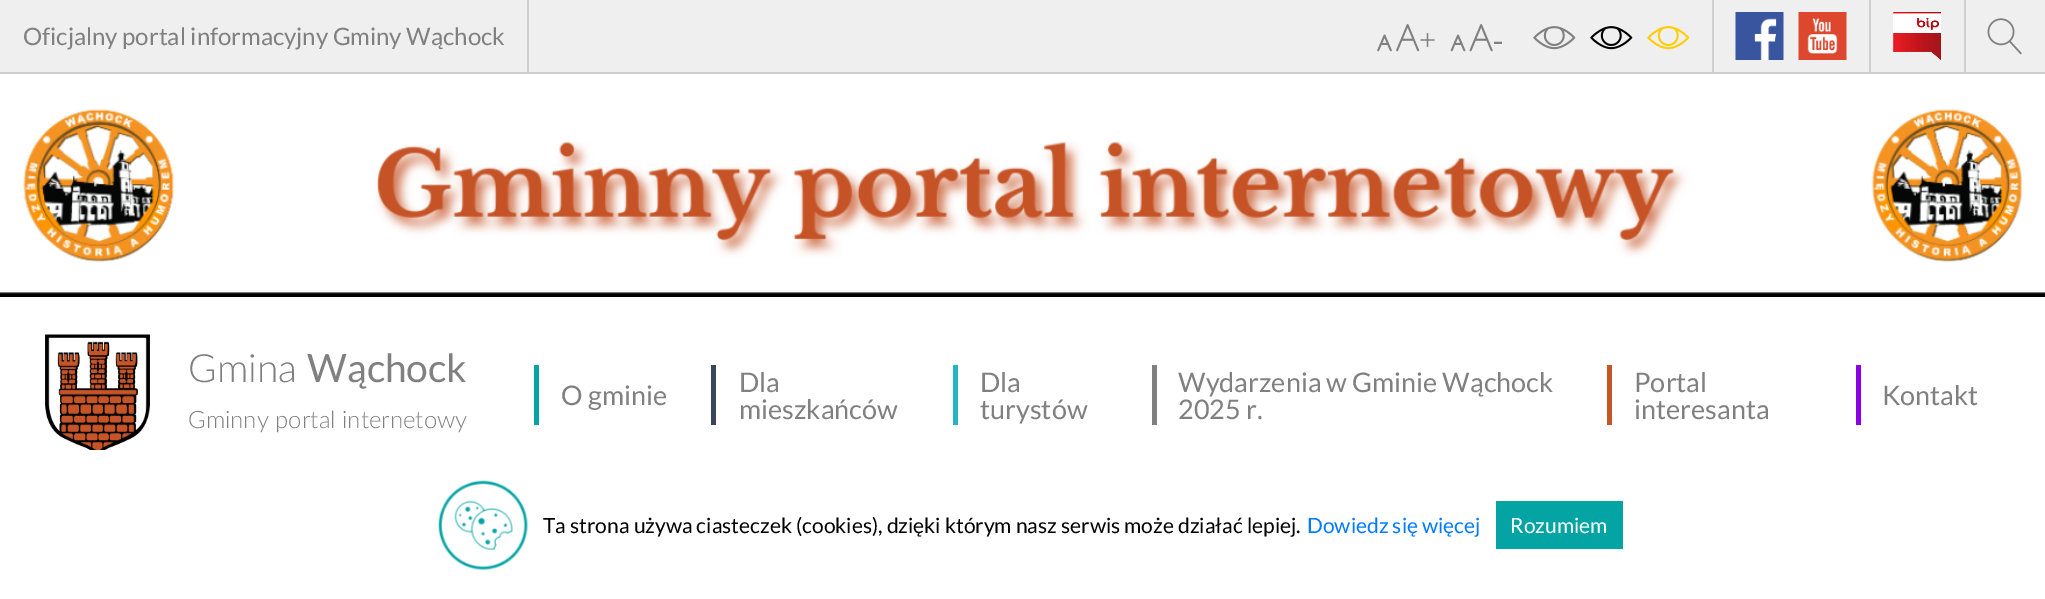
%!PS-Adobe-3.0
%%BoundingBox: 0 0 2045 599
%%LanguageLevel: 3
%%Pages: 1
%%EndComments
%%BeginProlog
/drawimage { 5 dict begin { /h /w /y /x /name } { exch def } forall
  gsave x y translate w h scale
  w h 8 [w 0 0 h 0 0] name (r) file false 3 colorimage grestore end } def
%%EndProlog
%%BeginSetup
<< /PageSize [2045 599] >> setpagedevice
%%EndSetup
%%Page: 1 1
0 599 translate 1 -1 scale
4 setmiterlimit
1 setgray
0 0 2045 599 rectfill
0.937 setgray
0 0 2045 72 rectfill
0.812 setgray
527 0 2 72 rectfill
1712 0 2 72 rectfill
(images/1.raw) 1377 24 43 28 drawimage
(images/2.raw) 1450 24 43 28 drawimage
(images/3.raw) 1533 26 43 24 drawimage
(images/4.raw) 1590 26 43 24 drawimage
(images/5.raw) 1647 26 43 24 drawimage
1964 0 2 72 rectfill
(images/6.raw) 1735 12 49 48 drawimage
(images/7.raw) 1798 12 49 48 drawimage
1869 0 2 72 rectfill
(images/8.raw) 1893 12 48 48 drawimage
(images/9.raw) 1987 18 35 37 drawimage
(images/10.raw) 0 109 2045 188 drawimage
0 72 2045 2 rectfill
(images/11.raw) 45 334 105 116 drawimage
0.016 0.643 0.643 setrgbcolor
534 365 5 60 rectfill
0.224 0.275 0.369 setrgbcolor
711 365 5 60 rectfill
0.153 0.702 0.769 setrgbcolor
953 365 5 60 rectfill
0.502 setgray
1152 365 5 60 rectfill
0.773 0.333 0.153 setrgbcolor
1607 365 5 60 rectfill
0.549 0 0.91 setrgbcolor
1856 365 5 60 rectfill
(images/12.raw) 438 480 90 91 drawimage
0.016 0.643 0.643 setrgbcolor
1496 501 127 48 rectfill
/Lato-Regular [24 0 0 -24 0 0] selectfont
0.502 setgray
23 45 moveto (Oficjalny portal informacyjny Gminy Wąchock) show
/LiberationSerif-Regular [30 0 0 -30 0 0] selectfont
1419 50 moveto (+) show
1493 50 moveto (-) show
/Lato-Light [39 0 0 -39 0 0] selectfont
188 382 moveto (Gmina) show
/Lato-Regular [39 0 0 -39 0 0] selectfont
307 382 moveto (Wąchock) show
/Lato-Light [24 0 0 -24 0 0] selectfont
188 428 moveto (Gminny portal internetowy) show
/Lato-Regular [27 0 0 -27 0 0] selectfont
561 405 moveto (O gminie) show
739 392 moveto (Dla) show
739 419 moveto (mieszkańców) show
980 392 moveto (Dla) show
980 419 moveto (turystów) show
1178 392 moveto (Wydarzenia w Gminie Wąchock) show
1178 419 moveto (2025 r.) show
1634 392 moveto (Portal) show
1634 419 moveto (interesanta) show
1882 405 moveto (Kontakt) show
/Lato-Regular [21 0 0 -21 0 0] selectfont
0 setgray
543 533 moveto (Ta strona używa ciasteczek \(cookies\), dzięki którym nasz serwis może działać lepiej.) show
0 0.482 1 setrgbcolor
1307 533 moveto (Dowiedz się więcej) show
1 setgray
1510 533 moveto (Rozumiem) show
showpage
%%EOF
